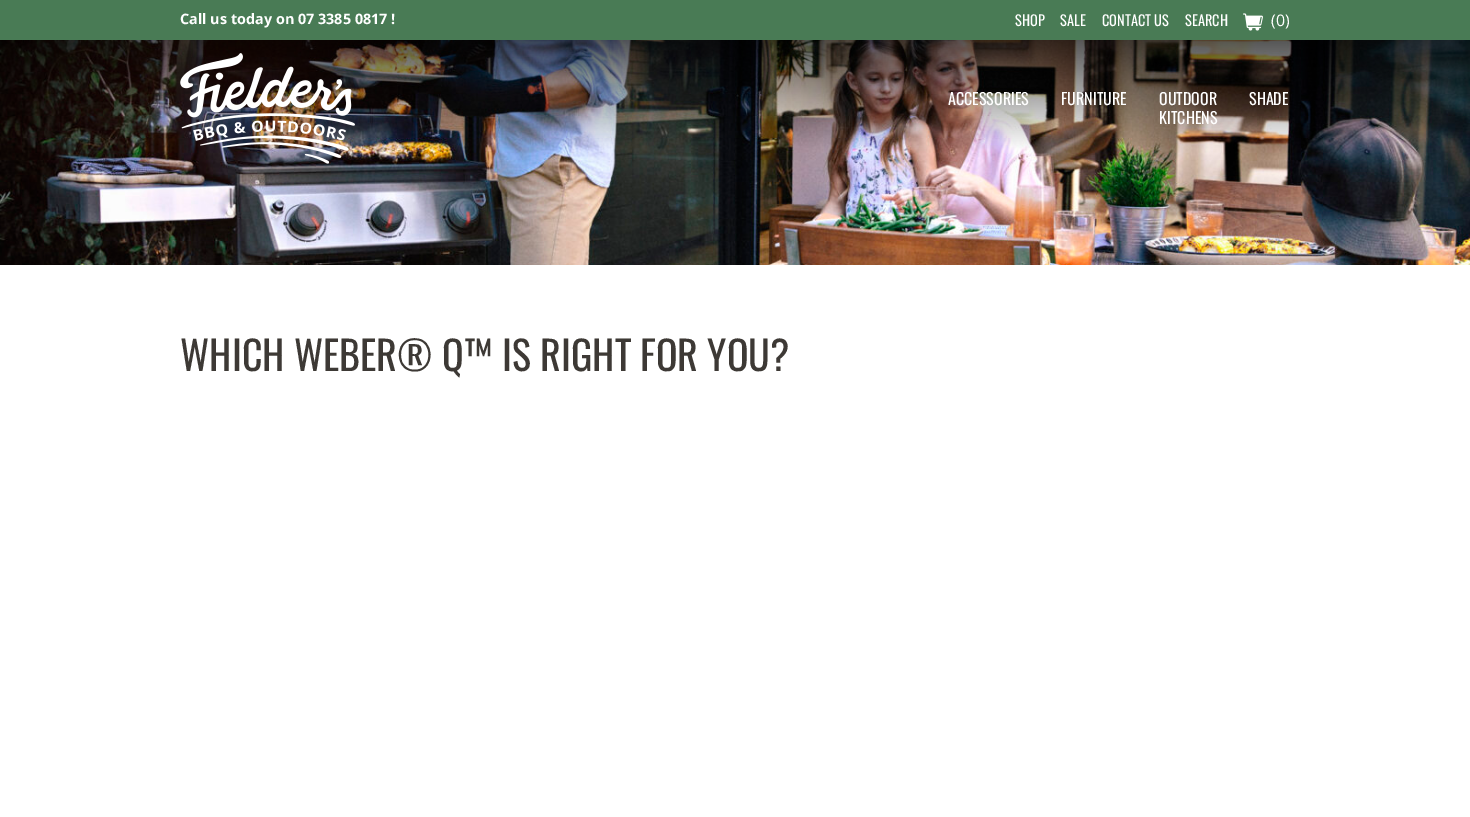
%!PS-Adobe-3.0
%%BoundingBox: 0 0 1470 817
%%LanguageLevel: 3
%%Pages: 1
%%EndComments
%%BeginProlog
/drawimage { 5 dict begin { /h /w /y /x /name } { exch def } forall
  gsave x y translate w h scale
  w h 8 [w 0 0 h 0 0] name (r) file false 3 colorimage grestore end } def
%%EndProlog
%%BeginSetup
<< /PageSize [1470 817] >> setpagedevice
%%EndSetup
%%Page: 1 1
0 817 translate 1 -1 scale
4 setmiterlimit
1 setgray
0 0 1470 817 rectfill
0.286 0.482 0.333 setrgbcolor
0 0 1470 40 rectfill
(images/1.raw) 1243 13 20 18 drawimage
(images/2.raw) 0 40 1470 225 drawimage
(images/3.raw) 180 53 175 111 drawimage
/OpenSans-Bold [14.4 0 0 -14.4 0 0] selectfont
1 setgray
180 24 moveto (Call us today on 07 3385 0817 !) show
/Oswald-Regular [14.4 0 0 -14.4 0 0] selectfont
1015 26 moveto (SHOP) show
1060 26 moveto (SALE) show
1102 26 moveto (CONTACT US) show
1185 26 moveto (SEARCH) show
/OpenSans-Regular [16 0 0 -16 0 0] selectfont
1271 26 moveto (\(0\)) show
/Oswald-Regular [16 0 0 -16 0 0] selectfont
948 105 moveto (ACCESSORIES) show
1061 105 moveto (FURNITURE) show
1159 105 moveto (OUTDOOR) show
1159 124 moveto (KITCHENS) show
1249 105 moveto (SHADE) show
/Oswald-Regular [40 0 0 -40 0 0] selectfont
0.239 0.224 0.208 setrgbcolor
180 371 moveto (WHICH WEBER® Q™ IS RIGHT FOR YOU?) show
showpage
%%EOF
